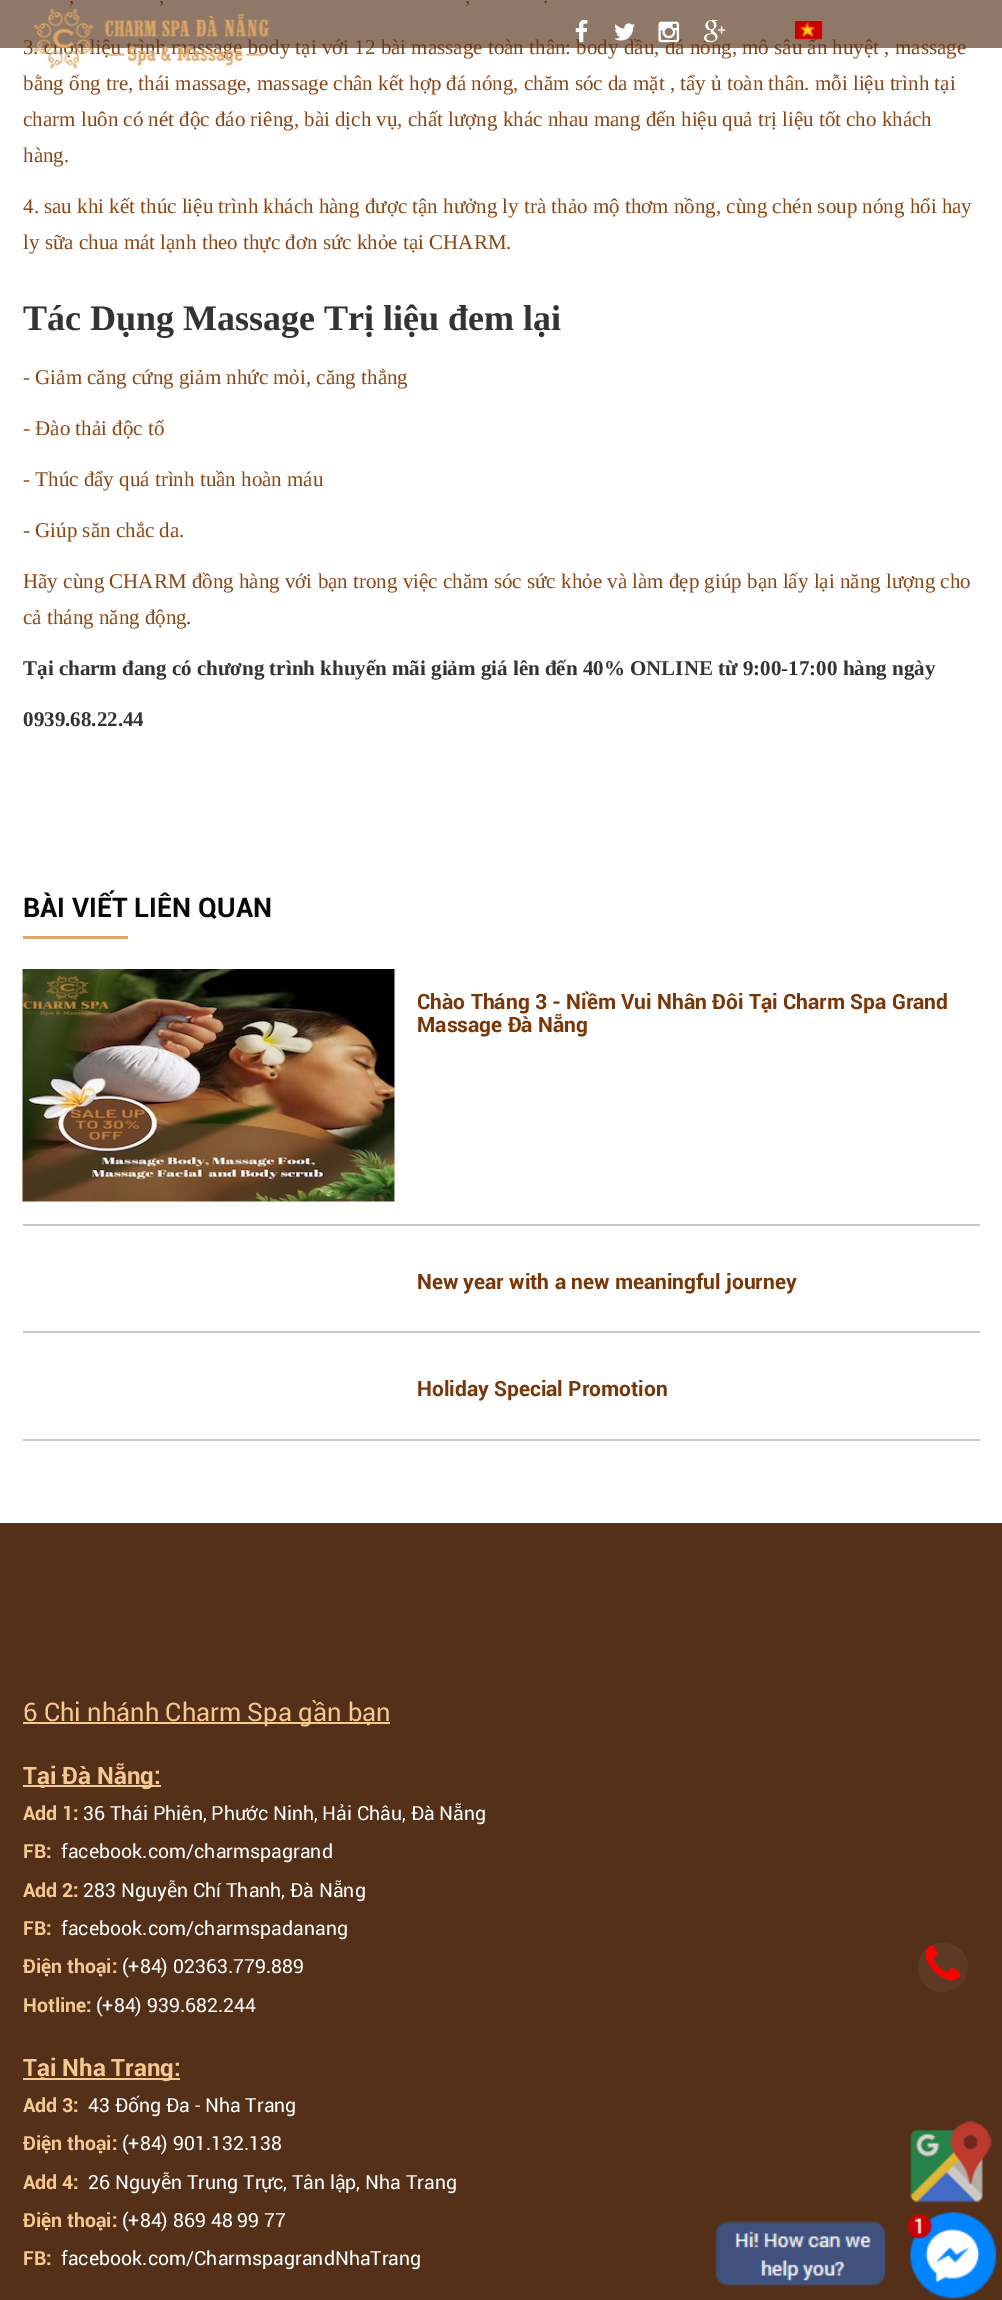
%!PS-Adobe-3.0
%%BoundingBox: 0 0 1002 2300
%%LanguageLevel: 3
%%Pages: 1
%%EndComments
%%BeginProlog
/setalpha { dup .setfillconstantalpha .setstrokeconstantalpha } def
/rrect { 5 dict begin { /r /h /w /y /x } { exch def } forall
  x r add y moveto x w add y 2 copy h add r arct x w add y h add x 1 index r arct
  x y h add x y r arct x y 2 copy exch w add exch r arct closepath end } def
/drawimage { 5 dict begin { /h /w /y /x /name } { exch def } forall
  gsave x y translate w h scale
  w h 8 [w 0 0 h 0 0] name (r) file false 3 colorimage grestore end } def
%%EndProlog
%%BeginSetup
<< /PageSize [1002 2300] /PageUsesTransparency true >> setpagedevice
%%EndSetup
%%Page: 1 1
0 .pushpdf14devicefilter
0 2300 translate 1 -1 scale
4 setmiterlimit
1 setgray
0 0 1002 2300 rectfill
0.863 0.651 0.4 setrgbcolor
23 936 105 3 rectfill
0.784 setgray
23 1224 957 2 rectfill
(images/7.raw) 22 969 373 233 drawimage
23 1331 957 2 rectfill
23 1439 957 2 rectfill
0.329 0.188 0.094 setrgbcolor
0 1523 1002 777 rectfill
0.973 0.784 0.573 setrgbcolor
23 1722 367 2 rectfill
23 1785 138 2 rectfill
23 2078 157 2 rectfill
0.365 0.227 0.141 setrgbcolor
918 1943 50 49 24.5 rrect fill
(images/8.raw) 925 1945 36 36 drawimage
(images/9.raw) 910 2121 82 82 drawimage
(images/10.raw) 715 2212 282 87 drawimage
/LiberationSerif-Regular [21 0 0 -21 0 0] selectfont
0.545 0.271 0.075 setrgbcolor
69 3 moveto (,) show
159 3 moveto (,) show
465 3 moveto (,) show
543 3 moveto (.) show
23 54 moveto (3. chọn liệu trình massage body tại với 12 bài massage toàn thân: body dầu, đá nóng, mô sâu ấn huyệt , massage) show
0.65 setalpha
0.329 0.188 0.094 setrgbcolor
0 0 1002 48 rectfill
1 setalpha
(images/5.raw) 704 19 22 24 drawimage
(images/4.raw) 658 21 22 22 drawimage
(images/3.raw) 614 23 21 18 drawimage
(images/2.raw) 575 19 13 24 drawimage
(images/6.raw) 795 21 28 19 drawimage
(images/1.raw) 33 8 237 61 drawimage
0.545 0.271 0.075 setrgbcolor
23 90 moveto (bằng ống tre, thái massage, massage chân kết hợp đá nóng, chăm sóc da mặt , tẩy ủ toàn thân. mỗi liệu trình tại) show
23 126 moveto (charm luôn có nét độc đáo riêng, bài dịch vụ, chất lượng khác nhau mang đến hiệu quả trị liệu tốt cho khách) show
23 162 moveto (hàng.) show
23 213 moveto (4. sau khi kết thúc liệu trình khách hàng được tận hưởng ly trà thảo mộ thơm nồng, cùng chén soup nóng hổi hay) show
23 249 moveto (ly sữa chua mát lạnh theo thực đơn sức khỏe tại CHARM.) show
/LiberationSerif-Bold [36 0 0 -36 0 0] selectfont
0.2 setgray
23 330 moveto (Tác Dụng Massage Trị liệu đem lại) show
/LiberationSerif-Regular [21 0 0 -21 0 0] selectfont
0.545 0.271 0.075 setrgbcolor
23 384 moveto (- Giảm căng cứng giảm nhức mỏi, căng thẳng) show
23 435 moveto (- Đào thải độc tố) show
23 486 moveto (- Thúc đẩy quá trình tuần hoàn máu) show
23 537 moveto (- Giúp săn chắc da.) show
23 588 moveto (Hãy cùng CHARM đồng hàng với bạn trong việc chăm sóc sức khỏe và làm đẹp giúp bạn lấy lại năng lượng cho) show
23 624 moveto (cả tháng năng động) show
0.2 setgray
186 624 moveto (.) show
/LiberationSerif-Bold [21 0 0 -21 0 0] selectfont
23 675 moveto (Tại charm đang có chương trình khuyến mãi giảm giá lên đến 40% ONLINE từ 9:00-17:00 hàng ngày) show
23 726 moveto (0939.68.22.44) show
/Roboto-Bold [27 0 0 -27 0 0] selectfont
0.039 setgray
23 917 moveto (BÀI VIẾT LIÊN QUAN) show
/Roboto-Bold [21 0 0 -21 0 0] selectfont
0.475 0.216 0.031 setrgbcolor
417 1009 moveto (Chào Tháng 3 - Niềm Vui Nhân Đôi Tại Charm Spa Grand) show
417 1032 moveto (Massage Đà Nẵng) show
417 1289 moveto (New year with a new meaningful journey) show
417 1396 moveto (Holiday Special Promotion) show
/Roboto-Regular [25.5 0 0 -25.5 0 0] selectfont
0.973 0.784 0.573 setrgbcolor
23 1721 moveto (6 Chi nhánh Charm Spa gần bạn) show
/Roboto-Bold [24 0 0 -24 0 0] selectfont
23 1784 moveto (Tại Đà Nẵng:) show
/Roboto-Bold [19.5 0 0 -19.5 0 0] selectfont
23 1820 moveto (Add 1:) show
/Roboto-Regular [19.5 0 0 -19.5 0 0] selectfont
1 setgray
83 1820 moveto (36 Thái Phiên, Phước Ninh, Hải Châu, Đà Nẵng) show
/Roboto-Bold [19.5 0 0 -19.5 0 0] selectfont
0.973 0.784 0.573 setrgbcolor
23 1858 moveto (FB:) show
/Roboto-Regular [19.5 0 0 -19.5 0 0] selectfont
1 setgray
61 1858 moveto (facebook.com/charmspagrand) show
/Roboto-Bold [19.5 0 0 -19.5 0 0] selectfont
0.973 0.784 0.573 setrgbcolor
23 1897 moveto (Add 2:) show
/Roboto-Regular [19.5 0 0 -19.5 0 0] selectfont
1 setgray
83 1897 moveto (283 Nguyễn Chí Thanh, Đà Nẵng) show
/Roboto-Bold [19.5 0 0 -19.5 0 0] selectfont
0.973 0.784 0.573 setrgbcolor
23 1935 moveto (FB:) show
/Roboto-Regular [19.5 0 0 -19.5 0 0] selectfont
1 setgray
61 1935 moveto (facebook.com/charmspadanang) show
/Roboto-Bold [19.5 0 0 -19.5 0 0] selectfont
0.973 0.784 0.573 setrgbcolor
23 1973 moveto (Điện thoại:) show
/Roboto-Regular [19.5 0 0 -19.5 0 0] selectfont
1 setgray
122 1973 moveto (\(+84\) 02363.779.889) show
/Roboto-Bold [19.5 0 0 -19.5 0 0] selectfont
0.973 0.784 0.573 setrgbcolor
23 2012 moveto (Hotline:) show
/Roboto-Regular [19.5 0 0 -19.5 0 0] selectfont
1 setgray
96 2012 moveto (\(+84\) 939.682.244) show
/Roboto-Bold [24 0 0 -24 0 0] selectfont
0.973 0.784 0.573 setrgbcolor
23 2076 moveto (Tại Nha Trang:) show
/Roboto-Bold [19.5 0 0 -19.5 0 0] selectfont
23 2112 moveto (Add 3:) show
/Roboto-Regular [19.5 0 0 -19.5 0 0] selectfont
1 setgray
88 2112 moveto (43 Đống Đa - Nha Trang) show
/Roboto-Bold [19.5 0 0 -19.5 0 0] selectfont
0.973 0.784 0.573 setrgbcolor
23 2150 moveto (Điện thoại:) show
/Roboto-Regular [19.5 0 0 -19.5 0 0] selectfont
1 setgray
122 2150 moveto (\(+84\) 901.132.138) show
/Roboto-Bold [19.5 0 0 -19.5 0 0] selectfont
0.973 0.784 0.573 setrgbcolor
23 2189 moveto (Add 4:) show
/Roboto-Regular [19.5 0 0 -19.5 0 0] selectfont
1 setgray
88 2189 moveto (26 Nguyễn Trung Trực, Tân lập, Nha Trang) show
/Roboto-Bold [19.5 0 0 -19.5 0 0] selectfont
0.973 0.784 0.573 setrgbcolor
23 2227 moveto (Điện thoại:) show
/Roboto-Regular [19.5 0 0 -19.5 0 0] selectfont
1 setgray
122 2227 moveto (\(+84\) 869 48 99 77) show
/Roboto-Bold [19.5 0 0 -19.5 0 0] selectfont
0.973 0.784 0.573 setrgbcolor
23 2265 moveto (FB:) show
/Roboto-Regular [19.5 0 0 -19.5 0 0] selectfont
1 setgray
61 2265 moveto (facebook.com/CharmspagrandNhaTrang) show
.poppdf14devicefilter showpage
%%EOF
